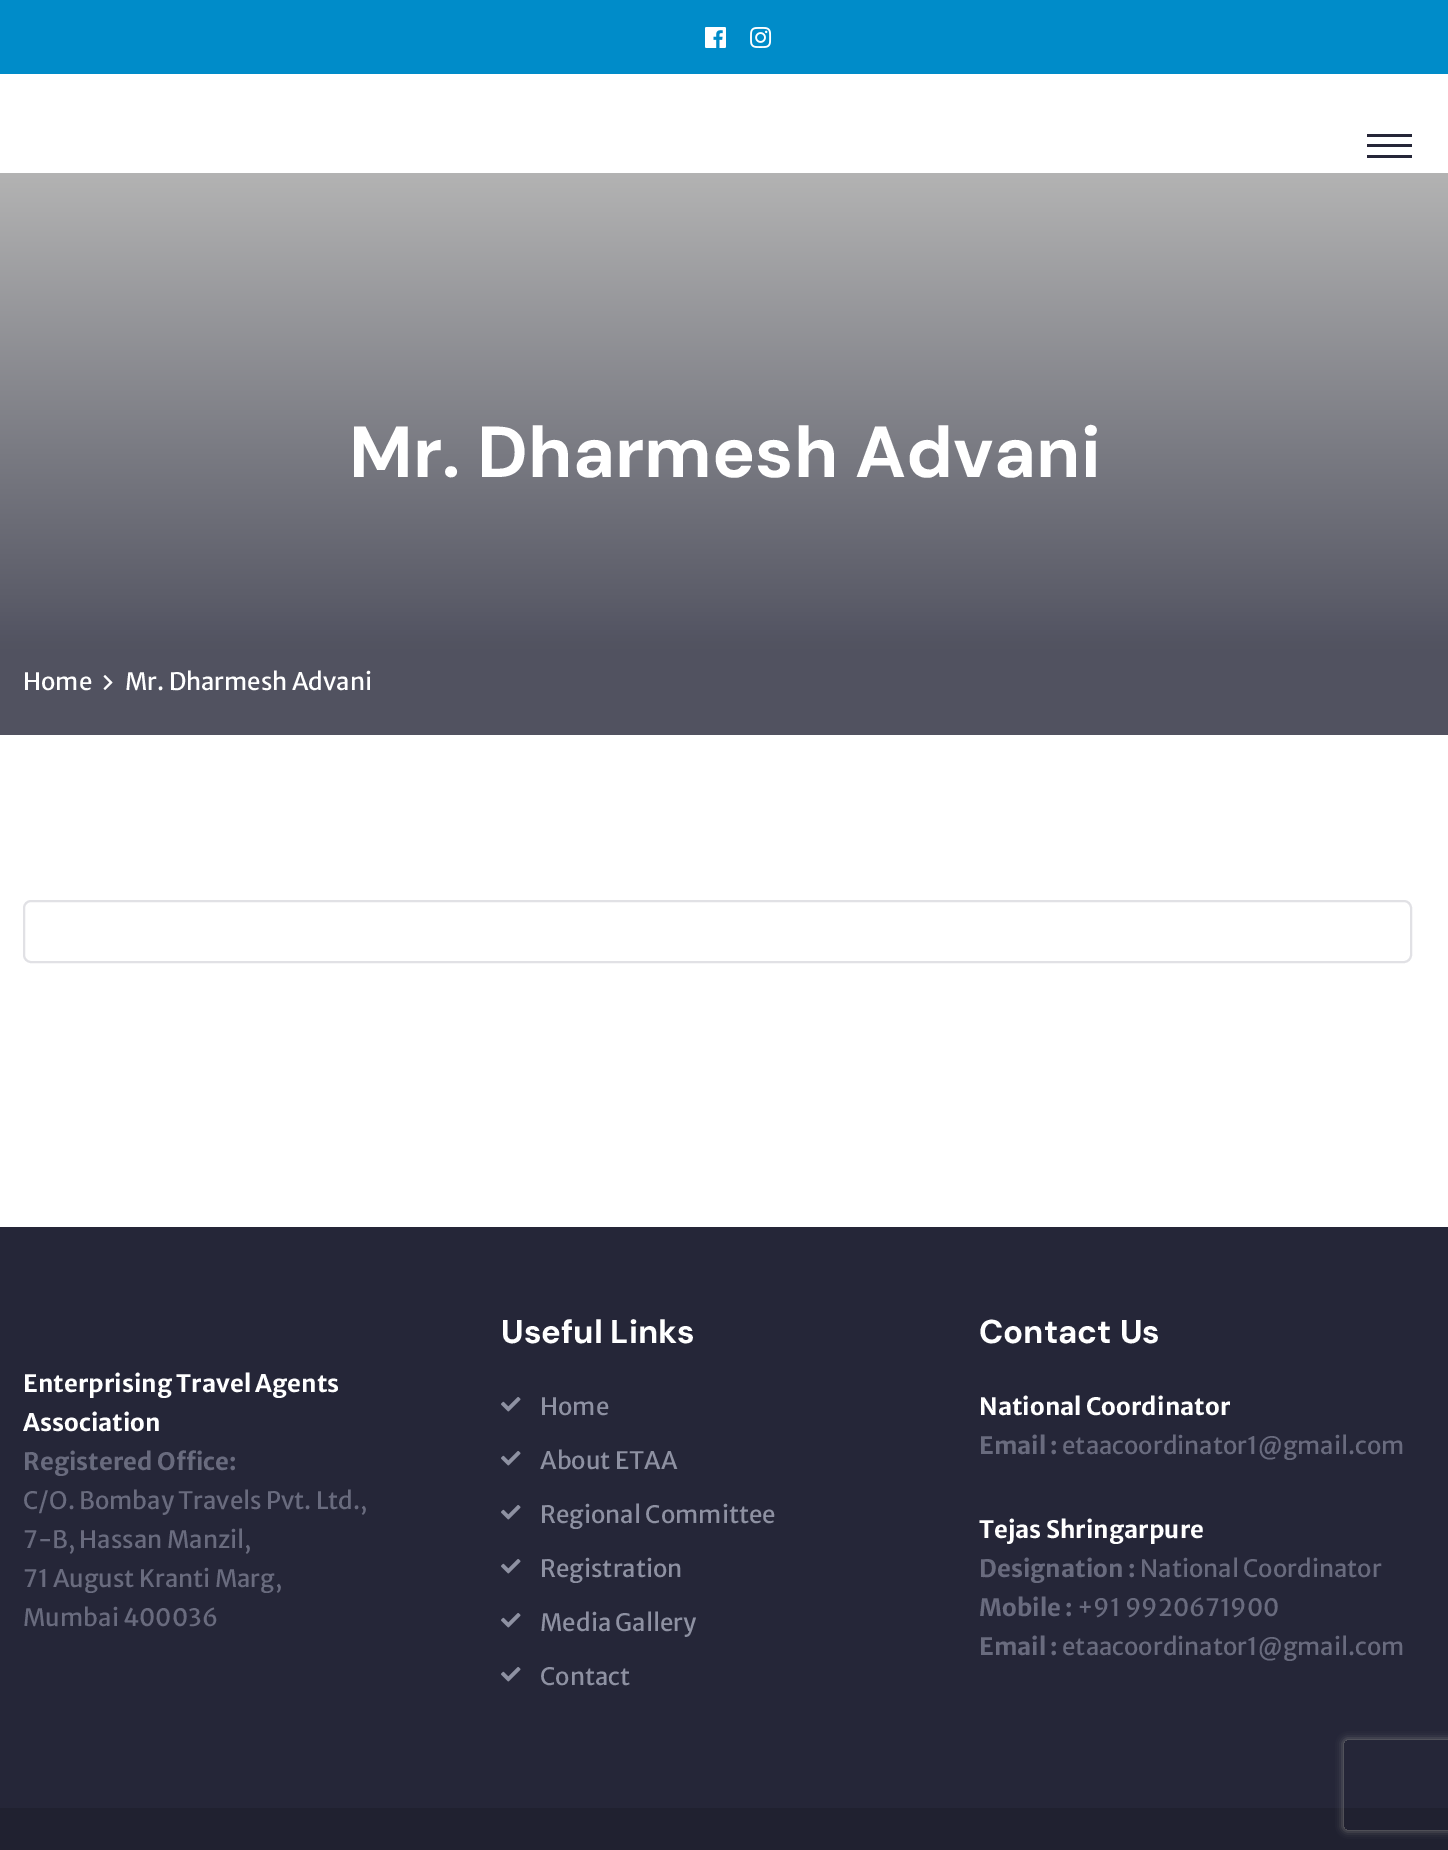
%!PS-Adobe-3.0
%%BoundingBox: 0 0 1448 1850
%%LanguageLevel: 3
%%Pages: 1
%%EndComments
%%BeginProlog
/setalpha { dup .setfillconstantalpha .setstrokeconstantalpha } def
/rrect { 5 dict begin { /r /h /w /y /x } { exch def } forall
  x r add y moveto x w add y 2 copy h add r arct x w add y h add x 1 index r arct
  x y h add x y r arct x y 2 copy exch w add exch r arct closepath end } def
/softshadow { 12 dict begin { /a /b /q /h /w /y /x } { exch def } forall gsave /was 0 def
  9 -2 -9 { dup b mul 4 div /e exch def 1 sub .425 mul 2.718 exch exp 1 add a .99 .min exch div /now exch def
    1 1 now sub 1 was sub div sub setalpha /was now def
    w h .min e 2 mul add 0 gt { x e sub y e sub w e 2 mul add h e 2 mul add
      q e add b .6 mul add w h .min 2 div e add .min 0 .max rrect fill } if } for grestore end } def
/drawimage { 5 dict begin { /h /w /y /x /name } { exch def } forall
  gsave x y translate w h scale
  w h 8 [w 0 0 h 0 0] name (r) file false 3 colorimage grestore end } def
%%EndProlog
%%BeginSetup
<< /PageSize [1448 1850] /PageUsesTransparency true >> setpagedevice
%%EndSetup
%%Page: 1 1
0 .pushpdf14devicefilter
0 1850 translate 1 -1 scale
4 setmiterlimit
1 setgray
0 0 1448 1850 rectfill
0 0.549 0.788 setrgbcolor
0 0 1448 74 rectfill
(images/1.raw) 705 27 21 21 drawimage
(images/2.raw) 750 27 22 21 drawimage
0.145 0.149 0.22 setrgbcolor
1367 134 45 3 rectfill
1367 144 45 3 rectfill
1367 155 45 3 rectfill
gsave newpath 0 173 moveto 1448 173 lineto 1448 735 lineto 0 735 lineto closepath clip newpath
<< /ShadingType 2 /ColorSpace /DeviceRGB /Coords [725 735 725 173] /Extend [true true] /Function << /FunctionType 3 /Domain [0 1] /Functions [<< /FunctionType 2 /Domain [0 1] /C0 [0.318 0.322 0.376] /C1 [0.318 0.322 0.376] /N 1 >> << /FunctionType 2 /Domain [0 1] /C0 [0.318 0.322 0.376] /C1 [0.702 0.702 0.702] /N 1 >>] /Bounds [0.15] /Encode [0 1 0 1] >> >> shfill grestore
(images/3.raw) 103 675 10 15 drawimage
0.882 0.882 0.898 setrgbcolor
2 setlinewidth
24 901 1387 61 7 rrect stroke
0.145 0.149 0.22 setrgbcolor
0 1227 1448 581 rectfill
(images/4.raw) 501 1397 20 15 drawimage
(images/4.raw) 501 1451 20 15 drawimage
(images/4.raw) 501 1505 20 15 drawimage
(images/4.raw) 501 1559 20 15 drawimage
(images/4.raw) 501 1613 20 15 drawimage
(images/4.raw) 501 1667 20 15 drawimage
0.125 0.129 0.188 setrgbcolor
0 1808 1448 42 rectfill
gsave
newpath 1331 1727 moveto 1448 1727 lineto 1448 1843 lineto 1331 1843 lineto closepath 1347 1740 moveto 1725 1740 lineto 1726.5 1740 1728 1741.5 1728 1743 curveto 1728 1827 lineto 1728 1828.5 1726.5 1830 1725 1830 curveto 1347 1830 lineto 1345.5 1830 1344 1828.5 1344 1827 curveto 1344 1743 lineto 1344 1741.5 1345.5 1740 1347 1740 curveto closepath eoclip newpath
0.502 setgray
1344 1740 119 90 3 4 1 softshadow
grestore
/DMSans-Bold [72 0 0 -72 0 0] selectfont
1 setgray
349 477 moveto (Mr. Dharmesh Advani) show
/MerriweatherSans-Regular [24 0 0 -24 0 0] selectfont
23 690 moveto (Home) show
125 690 moveto (Mr. Dharmesh Advani) show
/MerriweatherSans-Bold [24 0 0 -24 0 0] selectfont
23 1392 moveto (Enterprising Travel Agents) show
23 1431 moveto (Association) show
0.412 0.42 0.494 setrgbcolor
23 1470 moveto (Registered Office:) show
/MerriweatherSans-Regular [24 0 0 -24 0 0] selectfont
23 1509 moveto (C/O. Bombay Travels Pvt. Ltd.,) show
23 1548 moveto (7-B, Hassan Manzil,) show
23 1587 moveto (71 August Kranti Marg,) show
23 1626 moveto (Mumbai 400036) show
/DMSans-Bold [33 0 0 -33 0 0] selectfont
1 setgray
501 1343 moveto (Useful Links) show
/MerriweatherSans-Regular [24 0 0 -24 0 0] selectfont
0.557 0.569 0.635 setrgbcolor
540 1415 moveto (Home) show
540 1469 moveto (About ETAA) show
540 1523 moveto (Regional Committee) show
540 1577 moveto (Registration) show
540 1631 moveto (Media Gallery) show
540 1685 moveto (Contact) show
/DMSans-Bold [33 0 0 -33 0 0] selectfont
1 setgray
979 1343 moveto (Contact Us) show
/MerriweatherSans-Bold [24 0 0 -24 0 0] selectfont
979 1415 moveto (National Coordinator) show
0.412 0.42 0.494 setrgbcolor
979 1454 moveto (Email :) show
/MerriweatherSans-Regular [24 0 0 -24 0 0] selectfont
1062 1454 moveto (etaacoordinator1@gmail.com) show
/MerriweatherSans-Bold [24 0 0 -24 0 0] selectfont
1 setgray
979 1538 moveto (Tejas Shringarpure) show
0.412 0.42 0.494 setrgbcolor
979 1577 moveto (Designation :) show
/MerriweatherSans-Regular [24 0 0 -24 0 0] selectfont
1140 1577 moveto (National Coordinator) show
/MerriweatherSans-Bold [24 0 0 -24 0 0] selectfont
979 1616 moveto (Mobile :) show
/MerriweatherSans-Regular [24 0 0 -24 0 0] selectfont
1077 1616 moveto (+91 9920671900) show
/MerriweatherSans-Bold [24 0 0 -24 0 0] selectfont
979 1655 moveto (Email :) show
/MerriweatherSans-Regular [24 0 0 -24 0 0] selectfont
1062 1655 moveto (etaacoordinator1@gmail.com) show
.poppdf14devicefilter showpage
%%EOF
